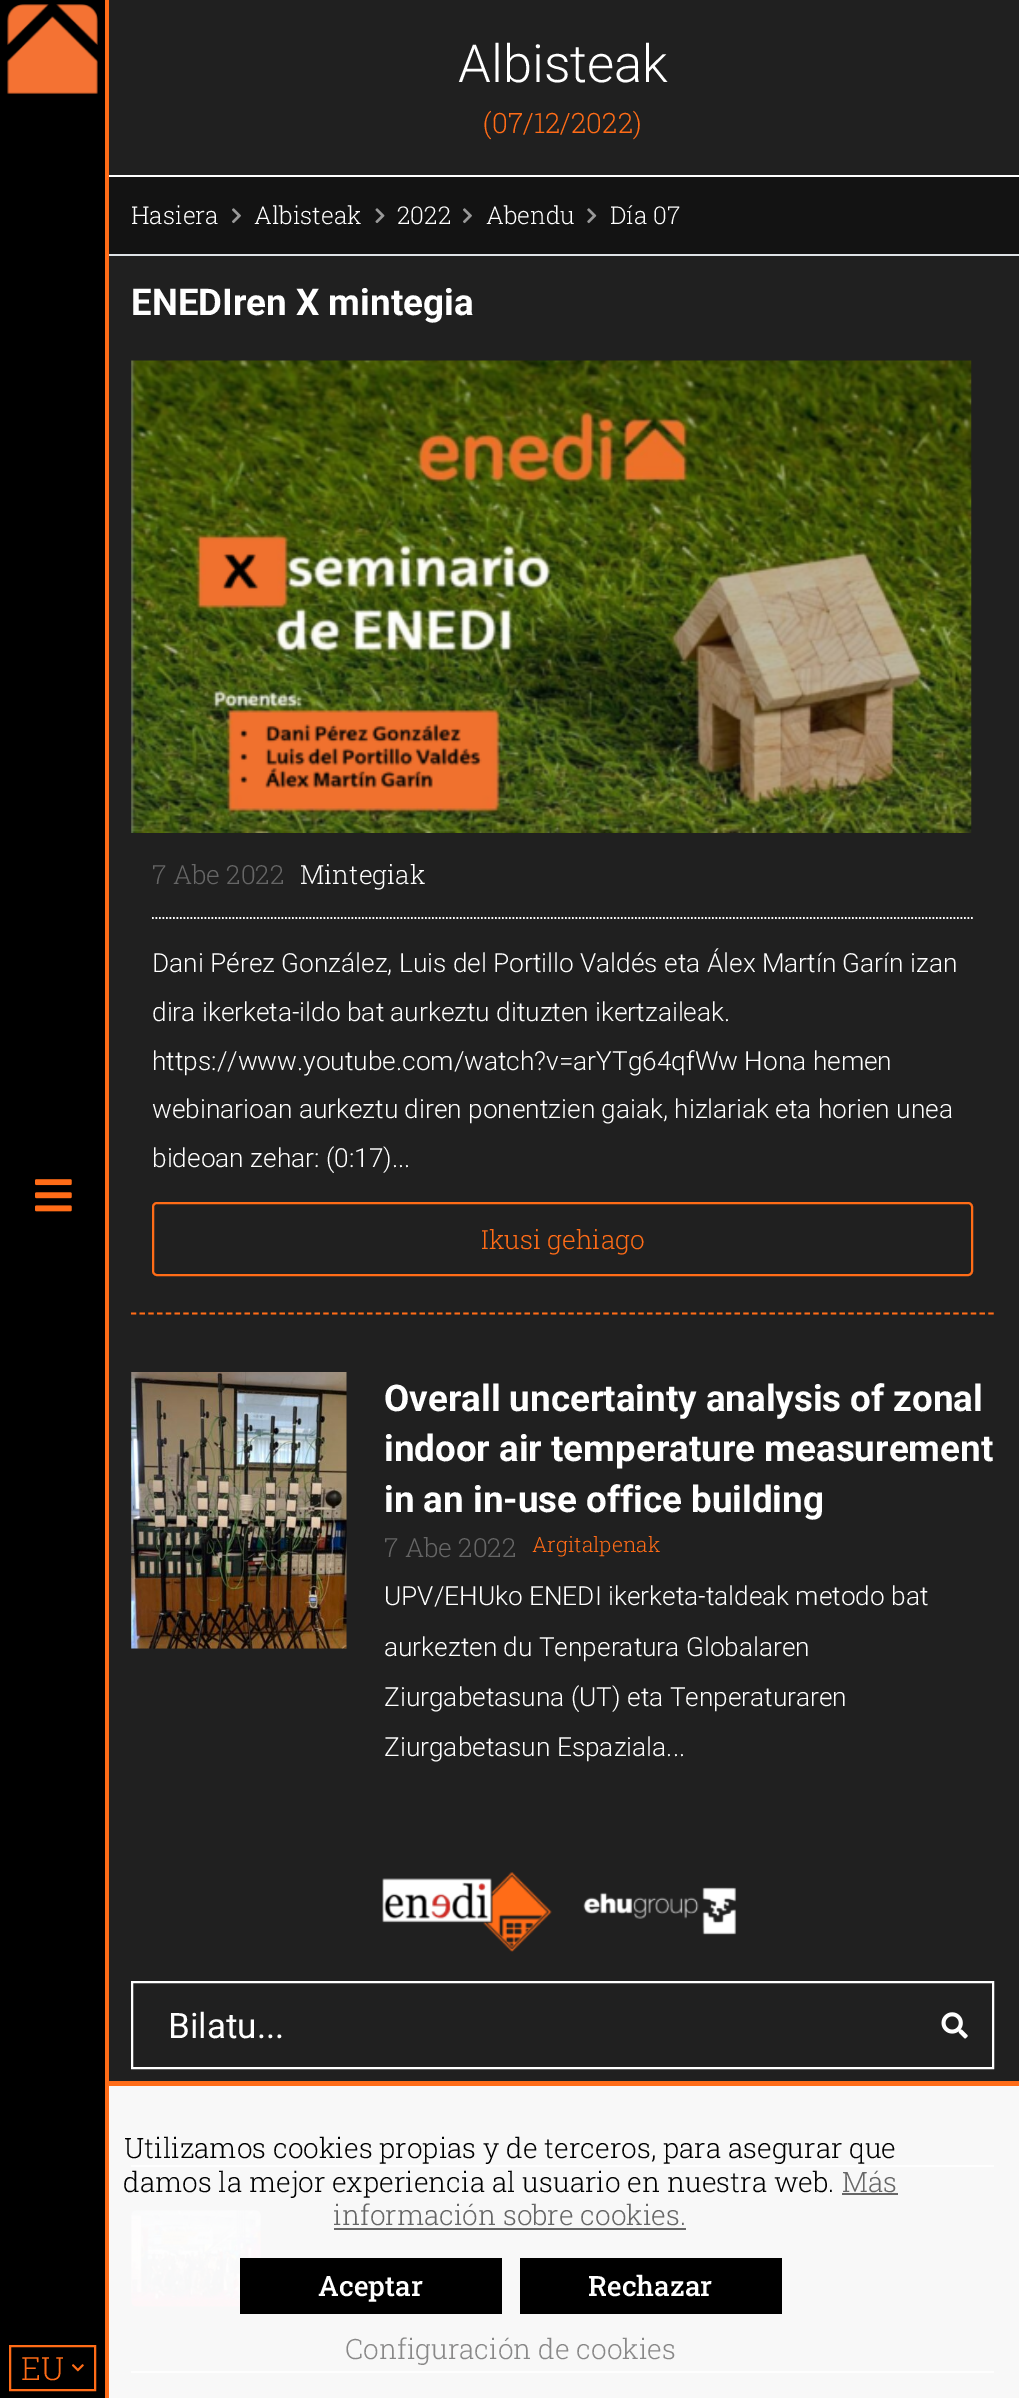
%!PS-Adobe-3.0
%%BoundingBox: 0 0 1019 2398
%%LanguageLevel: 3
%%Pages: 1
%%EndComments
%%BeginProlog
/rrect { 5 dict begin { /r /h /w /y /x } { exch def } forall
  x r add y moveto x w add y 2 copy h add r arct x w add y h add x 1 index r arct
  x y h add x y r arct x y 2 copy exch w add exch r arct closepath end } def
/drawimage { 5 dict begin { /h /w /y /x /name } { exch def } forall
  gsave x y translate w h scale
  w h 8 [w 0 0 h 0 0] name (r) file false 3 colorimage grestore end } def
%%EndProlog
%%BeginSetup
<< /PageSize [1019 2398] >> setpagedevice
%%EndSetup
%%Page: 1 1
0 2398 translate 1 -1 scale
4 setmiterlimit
0.125 setgray
0 0 1019 2398 rectfill
0.973 setgray
109 2086 910 312 rectfill
1 setgray
105 175 914 2 rectfill
0.075 setgray
109 177 910 77 rectfill
0.871 0.886 0.902 setrgbcolor
105 254 914 2 rectfill
(images/1.raw) 232 208 9 16 drawimage
(images/2.raw) 375 208 10 15 drawimage
(images/1.raw) 463 208 9 16 drawimage
(images/3.raw) 587 208 10 16 drawimage
1 0.424 0.09 setrgbcolor
1.8 setlinewidth
[5.25 3.5] 0 setdash
newpath 131 1313.5 moveto 994 1313.5 lineto stroke
(images/4.raw) 131 360 841 473 drawimage
1 setgray
[1.75 1.75] 0 setdash
newpath 152 918 moveto 973 918 lineto stroke
1 0.424 0.09 setrgbcolor
2 setlinewidth
[] 0 setdash
153 1203 819 72 4 rrect stroke
(images/5.raw) 131 1372 216 277 drawimage
(images/6.raw) 382 1872 170 80 drawimage
(images/7.raw) 583 1887 154 48 drawimage
1 setgray
132 1982 861 86 rectstroke
(images/8.raw) 941 2012 27 27 drawimage
0.996 setgray
131 2165 863 2 rectfill
131 2371 863 2 rectfill
(images/9.raw) 131 2210 130 97 drawimage
1 0.424 0.09 setrgbcolor
105 0 4 2398 rectfill
0 setgray
0 0 105 2398 rectfill
(images/10.raw) 7 4 91 90 drawimage
(images/11.raw) 35 1179 37 33 drawimage
1 0.424 0.09 setrgbcolor
10 2346 85 44 rectstroke
(images/12.raw) 72 2364 12 8 drawimage
109 2081 910 5 rectfill
0.4 setgray
842 2193 56 2 rectfill
334 2228 352 2 rectfill
0 setgray
240 2258 262 56 rectfill
520 2258 262 56 rectfill
/Roboto-Light [52.5 0 0 -52.5 0 0] selectfont
1 setgray
458 82 moveto (Albisteak) show
/RobotoSlab-Light [28 0 0 -28 0 0] selectfont
1 0.424 0.09 setrgbcolor
483 133 moveto (\(07/12/2022\)) show
/RobotoSlab-Light [24.5 0 0 -24.5 0 0] selectfont
1 setgray
131 224 moveto (Hasiera) show
254 224 moveto (Albisteak) show
397 224 moveto (2022) show
486 224 moveto (Abendu) show
610 224 moveto (Día 07) show
/Roboto-Bold [36.75 0 0 -36.75 0 0] selectfont
131 315 moveto (ENEDIren X mintegia) show
/RobotoSlab-Light [26.25 0 0 -26.25 0 0] selectfont
0.4 setgray
152 884 moveto (7 Abe 2022) show
1 setgray
300 884 moveto (Mintegiak) show
/Roboto-Light [26.25 0 0 -26.25 0 0] selectfont
152 972 moveto (Dani Pérez González, Luis del Portillo Valdés eta Álex Martín Garín izan) show
152 1021 moveto (dira ikerketa-ildo bat aurkeztu dituzten ikertzaileak.) show
152 1070 moveto (https://www.youtube.com/watch?v=arYTg64qfWw Hona hemen) show
152 1118 moveto (webinarioan aurkeztu diren ponentzien gaiak, hizlariak eta horien unea) show
152 1167 moveto (bideoan zehar: \(0:17\)...) show
/RobotoSlab-Light [26.25 0 0 -26.25 0 0] selectfont
1 0.424 0.09 setrgbcolor
481 1249 moveto (Ikusi gehiago) show
/Roboto-Bold [36.75 0 0 -36.75 0 0] selectfont
1 setgray
384 1411 moveto (Overall uncertainty analysis of zonal) show
384 1461 moveto (indoor air temperature measurement) show
384 1512 moveto (in an in-use office building) show
/RobotoSlab-Light [26.25 0 0 -26.25 0 0] selectfont
0.4 setgray
384 1557 moveto (7 Abe 2022) show
/RobotoSlab-Light [21 0 0 -21 0 0] selectfont
1 0.424 0.09 setrgbcolor
532 1552 moveto (Argitalpenak) show
/Roboto-Light [26.25 0 0 -26.25 0 0] selectfont
1 setgray
384 1605 moveto (UPV/EHUko ENEDI ikerketa-taldeak metodo bat) show
384 1656 moveto (aurkezten du Tenperatura Globalaren) show
384 1706 moveto (Ziurgabetasuna \(UT\) eta Tenperaturaren) show
384 1756 moveto (Ziurgabetasun Espaziala...) show
/Roboto-Regular [35 0 0 -35 0 0] selectfont
168 2038 moveto (Bilatu...) show
/RobotoSlab-Light [32 0 0 -32 0 0] selectfont
1 0.424 0.09 setrgbcolor
21 2380 moveto (EU) show
/RobotoSlab-Light [28 0 0 -28 0 0] selectfont
0 setgray
124 2158 moveto (Utilizamos cookies propias y de terceros, para asegurar que) show
123 2192 moveto (damos la mejor experiencia al usuario en nuestra web.) show
0.4 setgray
842 2192 moveto (Más) show
333 2225 moveto (información sobre cookies.) show
/RobotoSlab-Medium [28 0 0 -28 0 0] selectfont
1 setgray
318 2296 moveto (Aceptar) show
588 2296 moveto (Rechazar) show
/RobotoSlab-Light [28 0 0 -28 0 0] selectfont
0.537 0.533 0.533 setrgbcolor
345 2359 moveto (Configuración de cookies) show
showpage
%%EOF
